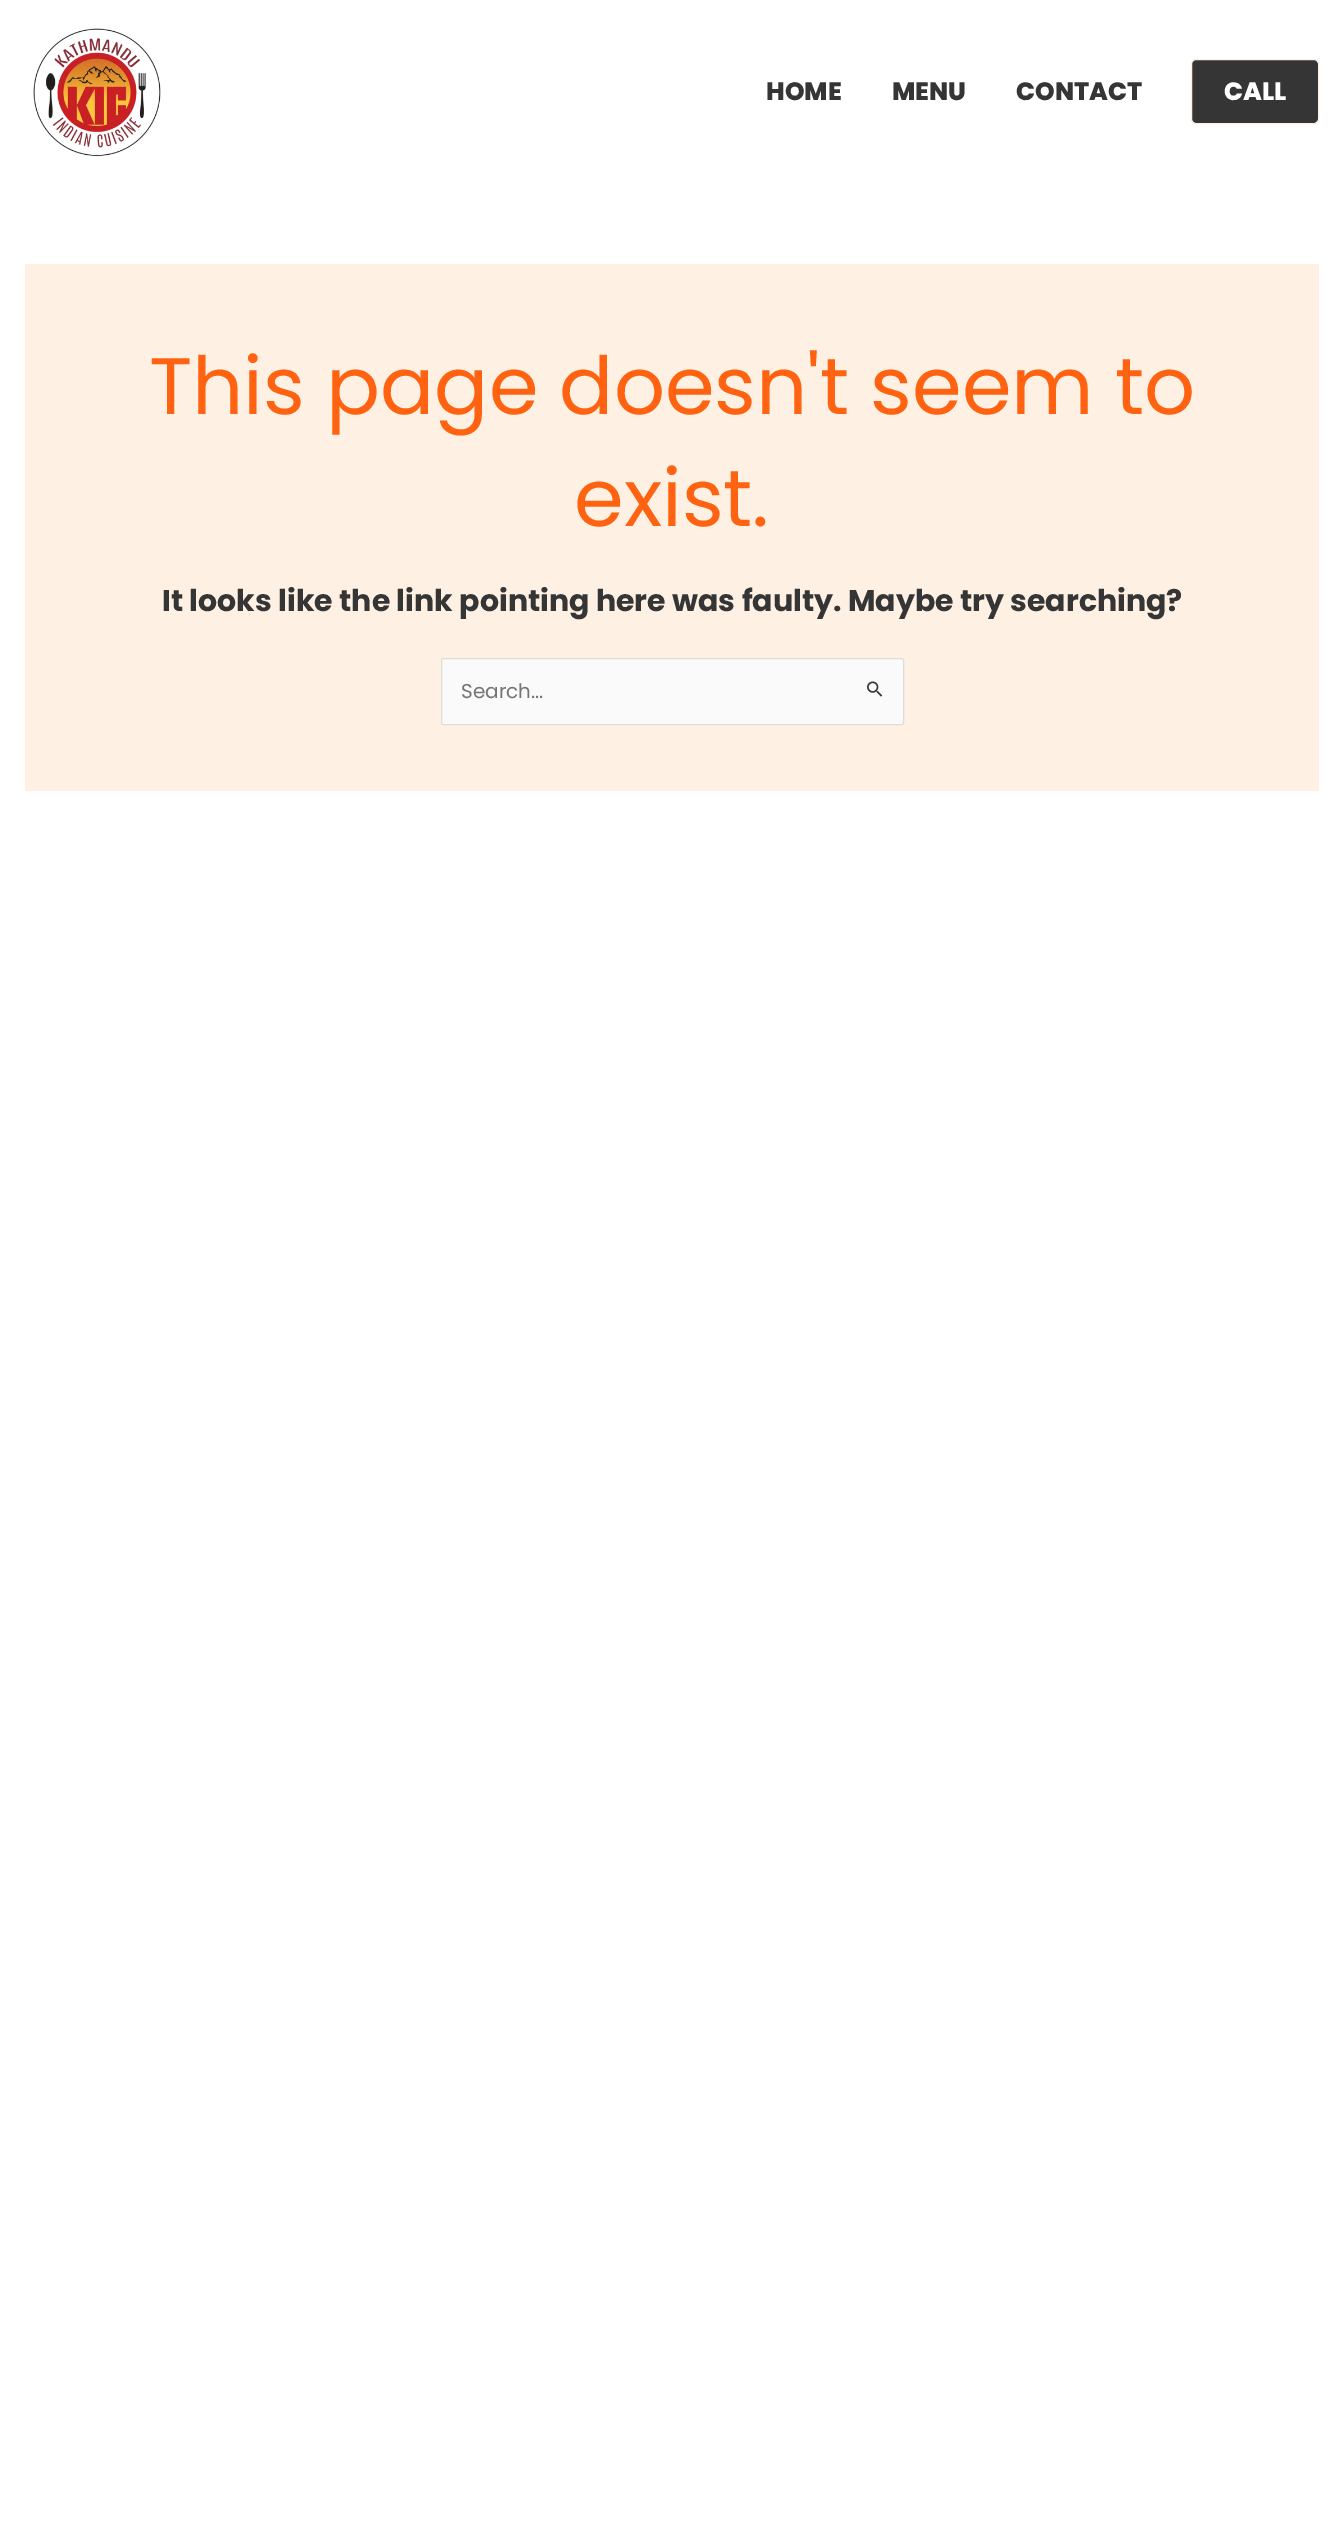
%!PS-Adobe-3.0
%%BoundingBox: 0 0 1343 2544
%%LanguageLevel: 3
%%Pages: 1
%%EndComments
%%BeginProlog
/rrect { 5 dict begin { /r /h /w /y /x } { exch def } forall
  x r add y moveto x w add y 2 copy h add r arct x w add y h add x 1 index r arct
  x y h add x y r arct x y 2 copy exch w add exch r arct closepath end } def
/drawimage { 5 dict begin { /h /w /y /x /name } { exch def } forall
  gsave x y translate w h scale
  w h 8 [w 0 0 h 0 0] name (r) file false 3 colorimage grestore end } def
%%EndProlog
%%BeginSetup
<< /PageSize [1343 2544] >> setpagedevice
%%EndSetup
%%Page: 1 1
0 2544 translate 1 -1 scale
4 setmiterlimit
1 setgray
0 0 1343 2544 rectfill
(images/1.raw) 33 28 128 129 drawimage
0.208 setgray
1191.5 59.5 127 64 4.5 rrect gsave fill grestore
0.996 0.945 0.894 setrgbcolor
stroke
25 264 1294 527 rectfill
0.98 setgray
441.5 658.5 462 66 2 rrect gsave fill grestore
0.867 setgray
stroke
(images/2.raw) 867 681 16 16 drawimage
/Poppins-ExtraBold [25 0 0 -25 0 0] selectfont
0.208 setgray
766 100 moveto (HOME) show
892 100 moveto (MENU) show
1016 100 moveto (CONTACT) show
1 setgray
1224 100 moveto (CALL) show
/Poppins-Regular [80 0 0 -80 0 0] selectfont
1 0.384 0.063 setrgbcolor
149 414 moveto (This page doesn't seem to) show
574 526 moveto (exist.) show
/Poppins-Bold [30 0 0 -30 0 0] selectfont
0.208 setgray
162 611 moveto (It looks like the link pointing here was faulty. Maybe try searching?) show
/Poppins-Regular [20 0 0 -20 0 0] selectfont
0.459 setgray
461 698 moveto (Search...) show
showpage
%%EOF
